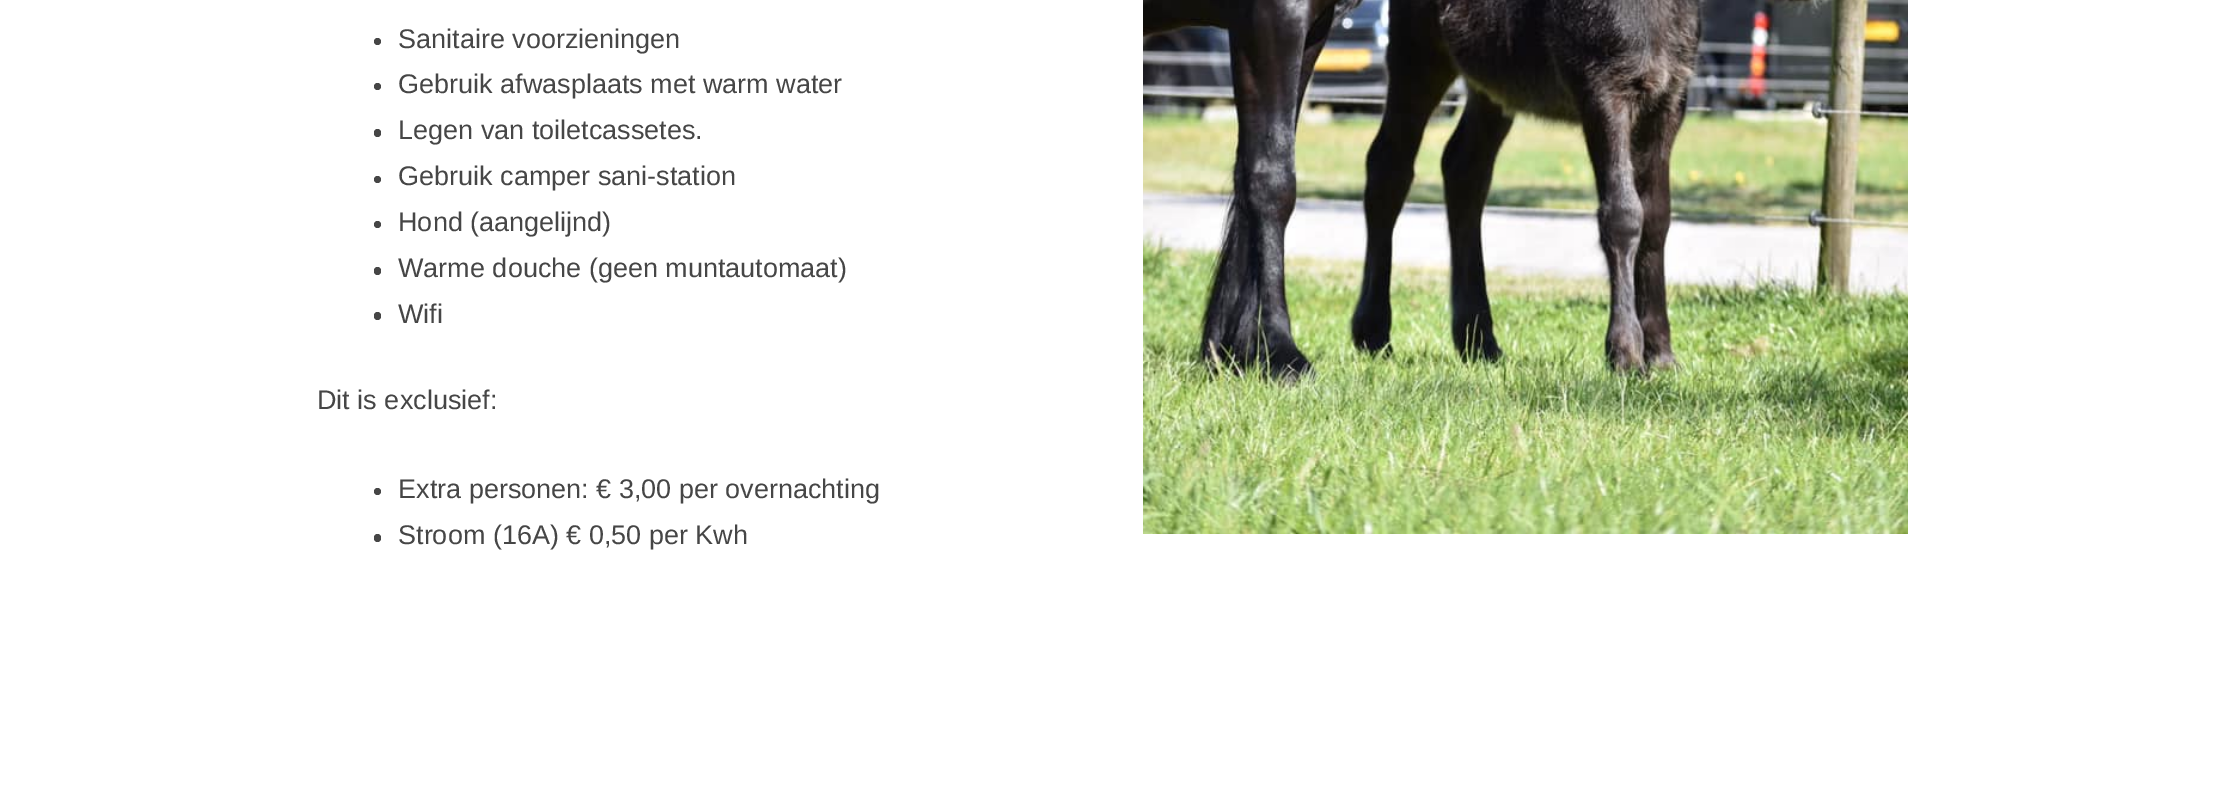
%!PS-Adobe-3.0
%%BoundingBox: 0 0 2224 800
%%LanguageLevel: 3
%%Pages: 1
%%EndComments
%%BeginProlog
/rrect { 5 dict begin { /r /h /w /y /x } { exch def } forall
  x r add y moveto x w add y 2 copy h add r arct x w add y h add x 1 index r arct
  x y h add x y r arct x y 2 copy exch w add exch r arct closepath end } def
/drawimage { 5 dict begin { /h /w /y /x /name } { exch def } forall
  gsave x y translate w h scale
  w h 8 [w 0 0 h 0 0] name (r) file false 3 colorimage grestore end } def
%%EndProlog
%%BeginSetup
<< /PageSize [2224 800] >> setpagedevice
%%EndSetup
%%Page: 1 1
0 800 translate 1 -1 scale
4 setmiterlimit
1 setgray
0 0 2224 800 rectfill
0.275 setgray
newpath 377.5 41.5 3.5 0 360 arc closepath fill
newpath 377.5 86.5 3.5 0 360 arc closepath fill
374 129 7 8 3.5 rrect fill
newpath 377.5 179.5 3.5 0 360 arc closepath fill
newpath 377.5 224.5 3.5 0 360 arc closepath fill
374 267 7 8 3.5 rrect fill
374 312 7 8 3.5 rrect fill
newpath 377.5 491.5 3.5 0 360 arc closepath fill
374 534 7 8 3.5 rrect fill
(images/1.raw) 1143 0 765 534 drawimage
/LiberationSans-Regular [27 0 0 -27 0 0] selectfont
398 48 moveto (Sanitaire voorzieningen) show
398 93 moveto (Gebruik afwasplaats met warm water) show
398 139 moveto (Legen van toiletcassetes.) show
398 185 moveto (Gebruik camper sani-station) show
398 231 moveto (Hond \(aangelijnd\)) show
398 277 moveto (Warme douche \(geen muntautomaat\)) show
398 323 moveto (Wifi) show
317 409 moveto (Dit is exclusief:) show
398 498 moveto (Extra personen: € 3,00 per overnachting) show
398 544 moveto (Stroom \(16A\) € 0,50 per Kwh) show
showpage
%%EOF
